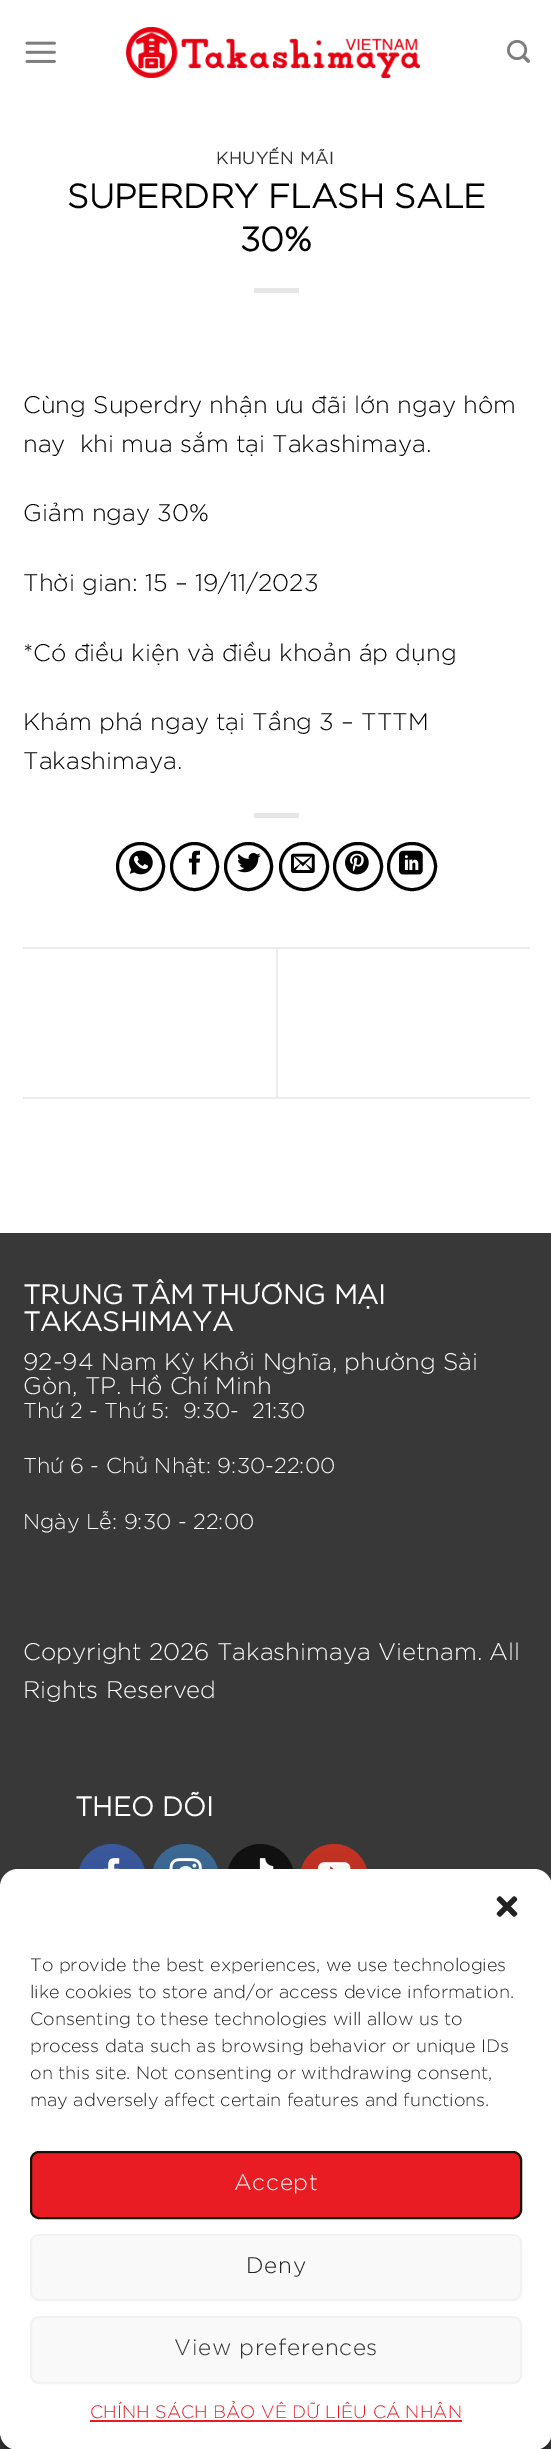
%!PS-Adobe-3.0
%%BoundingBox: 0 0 551 2449
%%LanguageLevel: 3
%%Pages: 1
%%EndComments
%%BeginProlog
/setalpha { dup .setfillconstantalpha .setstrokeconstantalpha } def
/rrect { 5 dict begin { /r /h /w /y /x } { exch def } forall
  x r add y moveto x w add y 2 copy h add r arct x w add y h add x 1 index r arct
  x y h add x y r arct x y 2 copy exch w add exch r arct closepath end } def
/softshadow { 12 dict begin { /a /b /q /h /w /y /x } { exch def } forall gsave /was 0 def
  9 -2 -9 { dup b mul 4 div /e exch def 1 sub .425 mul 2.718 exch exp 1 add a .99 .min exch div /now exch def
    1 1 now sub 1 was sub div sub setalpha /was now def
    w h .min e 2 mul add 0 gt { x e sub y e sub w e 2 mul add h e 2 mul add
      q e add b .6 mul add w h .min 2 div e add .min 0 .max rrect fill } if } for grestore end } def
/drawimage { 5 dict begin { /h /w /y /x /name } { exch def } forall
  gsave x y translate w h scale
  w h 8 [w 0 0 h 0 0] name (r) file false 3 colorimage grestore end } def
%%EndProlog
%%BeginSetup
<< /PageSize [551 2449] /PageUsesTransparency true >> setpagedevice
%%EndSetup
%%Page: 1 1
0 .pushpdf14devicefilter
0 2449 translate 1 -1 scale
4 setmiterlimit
1 setgray
0 0 551 2449 rectfill
(images/1.raw) 25 41 31 22 drawimage
(images/2.raw) 126 27 294 51 drawimage
(images/3.raw) 507 39 23 24 drawimage
0.902 setgray
254 288 45 5 rectfill
254 813 45 5 rectfill
0 setgray
3 setlinewidth
newpath 140.5 866.5 23 0 360 arc closepath stroke
(images/4.raw) 129 850 24 25 drawimage
newpath 194.5 866.5 23 0 360 arc closepath stroke
(images/5.raw) 188 850 12 25 drawimage
newpath 248.5 866.5 23 0 360 arc closepath stroke
(images/6.raw) 237 853 24 20 drawimage
280.5 843.5 47 46 23 rrect stroke
(images/7.raw) 291 853 24 20 drawimage
334.5 843.5 47 46 23 rrect stroke
(images/8.raw) 345 850 24 25 drawimage
388.5 843.5 47 46 23 rrect stroke
(images/9.raw) 399 850 24 25 drawimage
0.925 setgray
23 947 507 2 rectfill
23 1097 507 2 rectfill
276 948 2 149 rectfill
0.22 setgray
0 1233 551 1216 rectfill
0.227 0.345 0.616 setrgbcolor
79 1845 66 67 33 rrect gsave fill grestore
2 setlinewidth
stroke
(images/10.raw) 104 1858 16 11 drawimage
0.231 0.412 0.58 setrgbcolor
153 1845 65 67 32.5 rrect gsave fill grestore
stroke
(images/11.raw) 169 1858 33 11 drawimage
0.067 setgray
228 1845 65 67 32.5 rrect gsave fill grestore
stroke
(images/12.raw) 259 1858 15 11 drawimage
0.765 0.196 0.137 setrgbcolor
301 1845 66 67 33 rrect gsave fill grestore
stroke
(images/13.raw) 318 1862 33 7 drawimage
0 setgray
0 1878 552 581 18 4.5 0.23 softshadow
0 1884 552 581 18 15 0.19 softshadow
1 setgray
0 1869 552 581 18 rrect fill
(images/14.raw) 496 1896 22 21 drawimage
0.914 0.11 0.141 setrgbcolor
31 2152 490 66 8 rrect gsave fill grestore
0.098 0.075 0.016 setrgbcolor
stroke
0.976 setgray
31 2235 490 65 8 rrect gsave fill grestore
0.949 setgray
stroke
0.976 setgray
31 2317 490 66 8 rrect gsave fill grestore
0.949 setgray
stroke
0.914 0.11 0.141 setrgbcolor
90 2420 372 2 rectfill
/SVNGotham-Bold [16.75 0 0 -16.75 0 0] selectfont
0.2 setgray
216 164 moveto 0.75 0 (KHUYẾN MÃI) ashow
/SVNGotham-Bold [33.6 0 0 -33.6 0 0] selectfont
0 setgray
67 208 moveto (SUPERDRY FLASH SALE) show
240 251 moveto (30%) show
/SVNGotham-Light [24 0 0 -24 0 0] selectfont
23 413 moveto (Cùng Superdry nhận ưu đãi lớn ngay hôm) show
23 452 moveto (nay  khi mua sắm tại Takashimaya.) show
23 521 moveto (Giảm ngay 30%) show
23 591 moveto (Thời gian: 15 – 19/11/2023) show
23 661 moveto (*Có điều kiện và điều khoản áp dụng) show
23 730 moveto (Khám phá ngay tại Tầng 3 – TTTM) show
23 769 moveto (Takashimaya.) show
/SVNGotham-Bold [27 0 0 -27 0 0] selectfont
1 setgray
23 1304 moveto (TRUNG TÂM THƯƠNG MẠI) show
23 1331 moveto (TAKASHIMAYA) show
/SVNGotham-Light [24 0 0 -24 0 0] selectfont
23 1370 moveto (92-94 Nam Kỳ Khởi Nghĩa, phường Sài) show
23 1394 moveto (Gòn, TP. Hồ Chí Minh) show
/SVNGotham-Light [21.6 0 0 -21.6 0 0] selectfont
23 1418 moveto (Thứ 2 - Thứ 5:  9:30-  21:30) show
23 1473 moveto (Thứ 6 - Chủ Nhật: 9:30-22:00) show
23 1529 moveto (Ngày Lễ: 9:30 - 22:00) show
/SVNGotham-Light [24 0 0 -24 0 0] selectfont
23 1660 moveto (Copyright 2026 Takashimaya Vietnam. All) show
23 1698 moveto (Rights Reserved) show
/SVNGotham-Bold [27 0 0 -27 0 0] selectfont
75 1816 moveto (THEO DÕI) show
/SVNGotham-Light [18 0 0 -18 0 0] selectfont
0.133 setgray
30 1971 moveto (To provide the best experiences, we use technologies) show
30 1998 moveto (like cookies to store and/or access device information.) show
30 2025 moveto (Consenting to these technologies will allow us to) show
30 2052 moveto (process data such as browsing behavior or unique IDs) show
30 2079 moveto (on this site. Not consenting or withdrawing consent,) show
30 2106 moveto (may adversely affect certain features and functions.) show
/SVNGotham-Light [22.5 0 0 -22.5 0 0] selectfont
1 setgray
234 2190 moveto 0.7 0 (Accept) ashow
0.133 setgray
246 2273 moveto 0.7 0 (Deny) ashow
0.2 setgray
174 2355 moveto 0.7 0 (View preferences) ashow
/SVNGotham-Light [18 0 0 -18 0 0] selectfont
0.914 0.11 0.141 setrgbcolor
90 2418 moveto (CHÍNH SÁCH BẢO VỆ DỮ LIỆU CÁ NHÂN) show
.poppdf14devicefilter showpage
%%EOF
